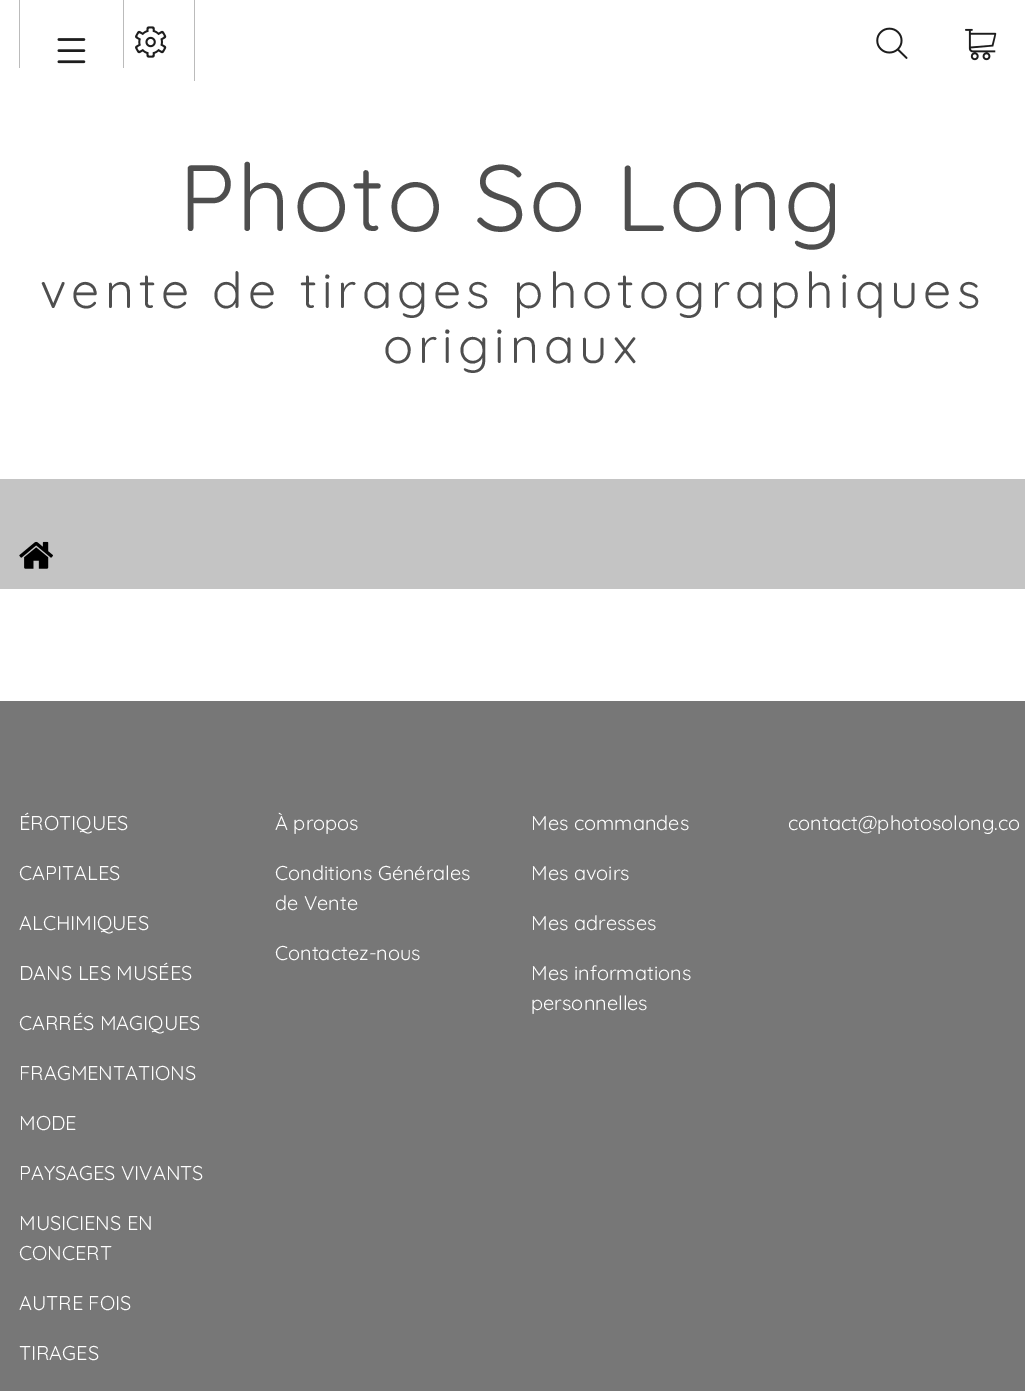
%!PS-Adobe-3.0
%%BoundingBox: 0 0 1025 1391
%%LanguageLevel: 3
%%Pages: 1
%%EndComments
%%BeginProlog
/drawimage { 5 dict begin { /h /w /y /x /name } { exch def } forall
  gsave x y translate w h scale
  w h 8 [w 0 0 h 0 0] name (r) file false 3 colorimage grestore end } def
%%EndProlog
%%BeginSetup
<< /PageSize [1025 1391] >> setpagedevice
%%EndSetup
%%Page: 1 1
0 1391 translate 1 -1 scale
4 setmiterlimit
1 setgray
0 0 1025 1391 rectfill
0.733 setgray
123 0 1 68 rectfill
19 0 1 68 rectfill
(images/1.raw) 57 38 29 26 drawimage
194 0 1 81 rectfill
(images/2.raw) 135 26 32 32 drawimage
(images/3.raw) 876 27 32 32 drawimage
(images/4.raw) 965 28 32 33 drawimage
0.769 setgray
0 479 1025 110 rectfill
(images/5.raw) 19 541 34 28 drawimage
0.467 setgray
0 701 1025 690 rectfill
/Quicksand-Regular [93.75 0 0 -93.75 0 0] selectfont
0.306 setgray
179 231 moveto 2.5 0 (Photo So Long) ashow
/Quicksand-Regular [50 0 0 -50 0 0] selectfont
40 308 moveto 5 0 (vente de tirages photographiques) ashow
383 363 moveto 5 0 (originaux) ashow
/Quicksand-Regular [20 0 0 -20 0 0] selectfont
1 setgray
19 830 moveto (ÉROTIQUES) show
19 880 moveto (CAPITALES) show
19 930 moveto (ALCHIMIQUES) show
19 980 moveto (DANS LES MUSÉES) show
19 1030 moveto (CARRÉS MAGIQUES) show
19 1080 moveto (FRAGMENTATIONS) show
19 1130 moveto (MODE) show
19 1180 moveto (PAYSAGES VIVANTS) show
19 1230 moveto (MUSICIENS EN) show
19 1260 moveto (CONCERT) show
19 1310 moveto (AUTRE FOIS) show
19 1360 moveto (TIRAGES) show
275 830 moveto (À propos) show
275 880 moveto (Conditions Générales) show
275 910 moveto (de Vente) show
275 960 moveto (Contactez-nous) show
531 830 moveto (Mes commandes) show
531 880 moveto (Mes avoirs) show
531 930 moveto (Mes adresses) show
531 980 moveto (Mes informations) show
531 1010 moveto (personnelles) show
788 830 moveto (contact@photosolong.co) show
showpage
%%EOF
